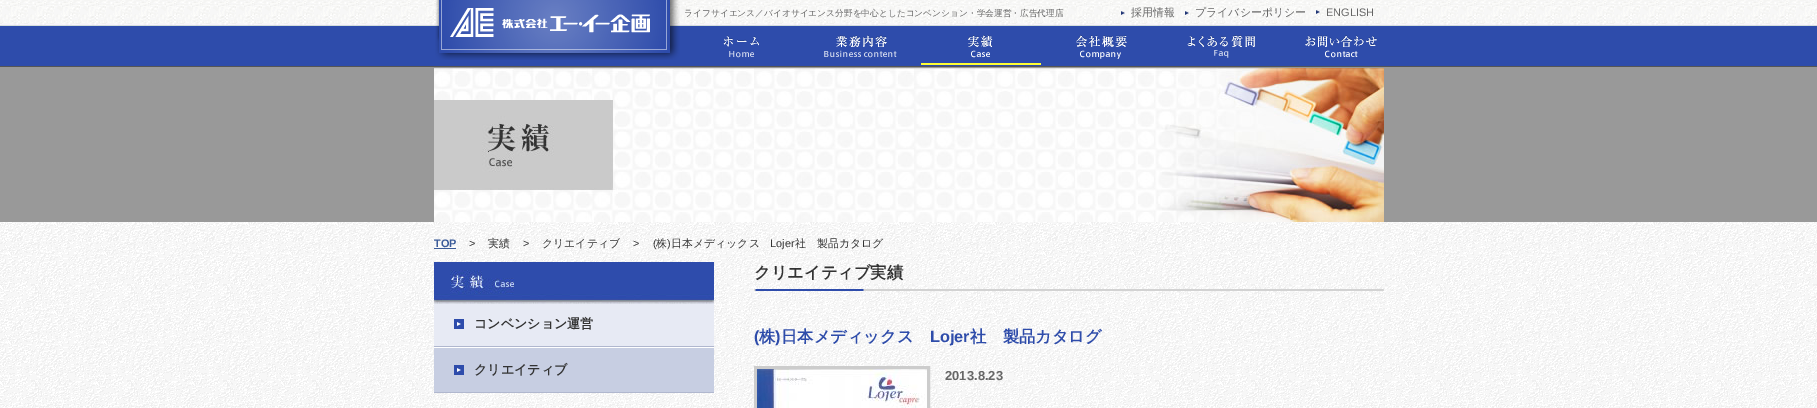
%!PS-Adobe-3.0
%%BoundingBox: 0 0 1817 408
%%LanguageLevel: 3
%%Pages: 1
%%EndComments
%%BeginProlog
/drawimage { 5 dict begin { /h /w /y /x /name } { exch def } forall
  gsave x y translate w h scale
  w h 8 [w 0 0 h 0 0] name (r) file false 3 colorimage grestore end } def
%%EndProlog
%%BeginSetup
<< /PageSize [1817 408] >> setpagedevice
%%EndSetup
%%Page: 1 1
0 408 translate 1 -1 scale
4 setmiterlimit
1 setgray
0 0 1817 408 rectfill
(images/1.raw) 0 222 1817 186 drawimage
(images/2.raw) 0 0 1817 68 drawimage
(images/3.raw) 435 0 245 60 drawimage
(images/4.raw) 1121 11 4 4 drawimage
(images/4.raw) 1185 11 4 4 drawimage
(images/4.raw) 1316 10 4 4 drawimage
(images/5.raw) 723 35 36 23 drawimage
(images/6.raw) 824 34 73 24 drawimage
(images/7.raw) 921 34 120 31 drawimage
(images/8.raw) 1076 34 51 25 drawimage
(images/9.raw) 1187 35 68 23 drawimage
(images/10.raw) 1305 35 72 23 drawimage
0.6 setgray
0 68 1817 154 rectfill
(images/11.raw) 434 68 950 154 drawimage
0.231 0.357 0.6 setrgbcolor
434 248 22 1 rectfill
(images/12.raw) 434 262 280 42 drawimage
0.906 0.918 0.957 setrgbcolor
434 304 280 42 rectfill
0.69 0.718 0.808 setrgbcolor
434 346 280 1 rectfill
(images/13.raw) 454 319 10 10 drawimage
0.78 0.808 0.886 setrgbcolor
434 348 280 44 rectfill
1 setgray
434 347 280 1 rectfill
0.69 0.718 0.808 setrgbcolor
434 392 280 1 rectfill
(images/13.raw) 454 365 10 10 drawimage
(images/14.raw) 754 289 630 2 drawimage
0.8 setgray
3 setlinewidth
755.5 367.5 173 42 rectstroke
(images/15.raw) 757 369 170 39 drawimage
/WenQuanYiZenHei-Medium [8.7 0 0 -8.7 0 0] selectfont
0.4 setgray
684 16 moveto (ライフサイエンス／バイオサイエンス分野を中心としたコンベンション・学会運営・広告代理店) show
/WenQuanYiZenHei-Medium [10.9 0 0 -10.9 0 0] selectfont
1131 16 moveto (採用情報) show
1195 16 moveto (プライバシーポリシー) show
/LiberationSans-Regular [10.9 0 0 -10.9 0 0] selectfont
1326 16 moveto (ENGLISH) show
/LiberationSans-Bold [10.9 0 0 -10.9 0 0] selectfont
0.231 0.357 0.6 setrgbcolor
434 247 moveto (TOP) show
/LiberationSans-Regular [10.9 0 0 -10.9 0 0] selectfont
0.2 setgray
469 247 moveto (>) show
/WenQuanYiZenHei-Medium [10.9 0 0 -10.9 0 0] selectfont
488 247 moveto (実績) show
/LiberationSans-Regular [10.9 0 0 -10.9 0 0] selectfont
523 247 moveto (>) show
/WenQuanYiZenHei-Medium [10.9 0 0 -10.9 0 0] selectfont
542 247 moveto (クリエイティブ) show
/LiberationSans-Regular [10.9 0 0 -10.9 0 0] selectfont
633 247 moveto (>) show
653 247 moveto (\() show
/WenQuanYiZenHei-Medium [10.9 0 0 -10.9 0 0] selectfont
656 247 moveto (株) show
/LiberationSans-Regular [10.9 0 0 -10.9 0 0] selectfont
667 247 moveto (\)) show
/WenQuanYiZenHei-Medium [10.9 0 0 -10.9 0 0] selectfont
671 247 moveto (日本メディックス) show
/LiberationSans-Regular [10.9 0 0 -10.9 0 0] selectfont
770 247 moveto (Lojer) show
/WenQuanYiZenHei-Medium [10.9 0 0 -10.9 0 0] selectfont
795 247 moveto (社　製品カタログ) show
/WenQuanYiZenHei-Bold [13 0 0 -13 0 0] selectfont
474 328 moveto (コンベンション運営) show
474 374 moveto (クリエイティブ) show
/WenQuanYiZenHei-Bold [16.25 0 0 -16.25 0 0] selectfont
754 278 moveto (クリエイティブ実績) show
/LiberationSans-Bold [16.25 0 0 -16.25 0 0] selectfont
0.18 0.298 0.667 setrgbcolor
754 342 moveto (\() show
/WenQuanYiZenHei-Bold [16.25 0 0 -16.25 0 0] selectfont
759 342 moveto (株) show
/LiberationSans-Bold [16.25 0 0 -16.25 0 0] selectfont
775 342 moveto (\)) show
/WenQuanYiZenHei-Bold [16.25 0 0 -16.25 0 0] selectfont
781 342 moveto (日本メディックス) show
/LiberationSans-Bold [16.25 0 0 -16.25 0 0] selectfont
930 342 moveto (Lojer) show
/WenQuanYiZenHei-Bold [16.25 0 0 -16.25 0 0] selectfont
970 342 moveto (社　製品カタログ) show
/LiberationSans-Bold [13 0 0 -13 0 0] selectfont
0.4 setgray
945 380 moveto (2013.8.23) show
showpage
%%EOF
